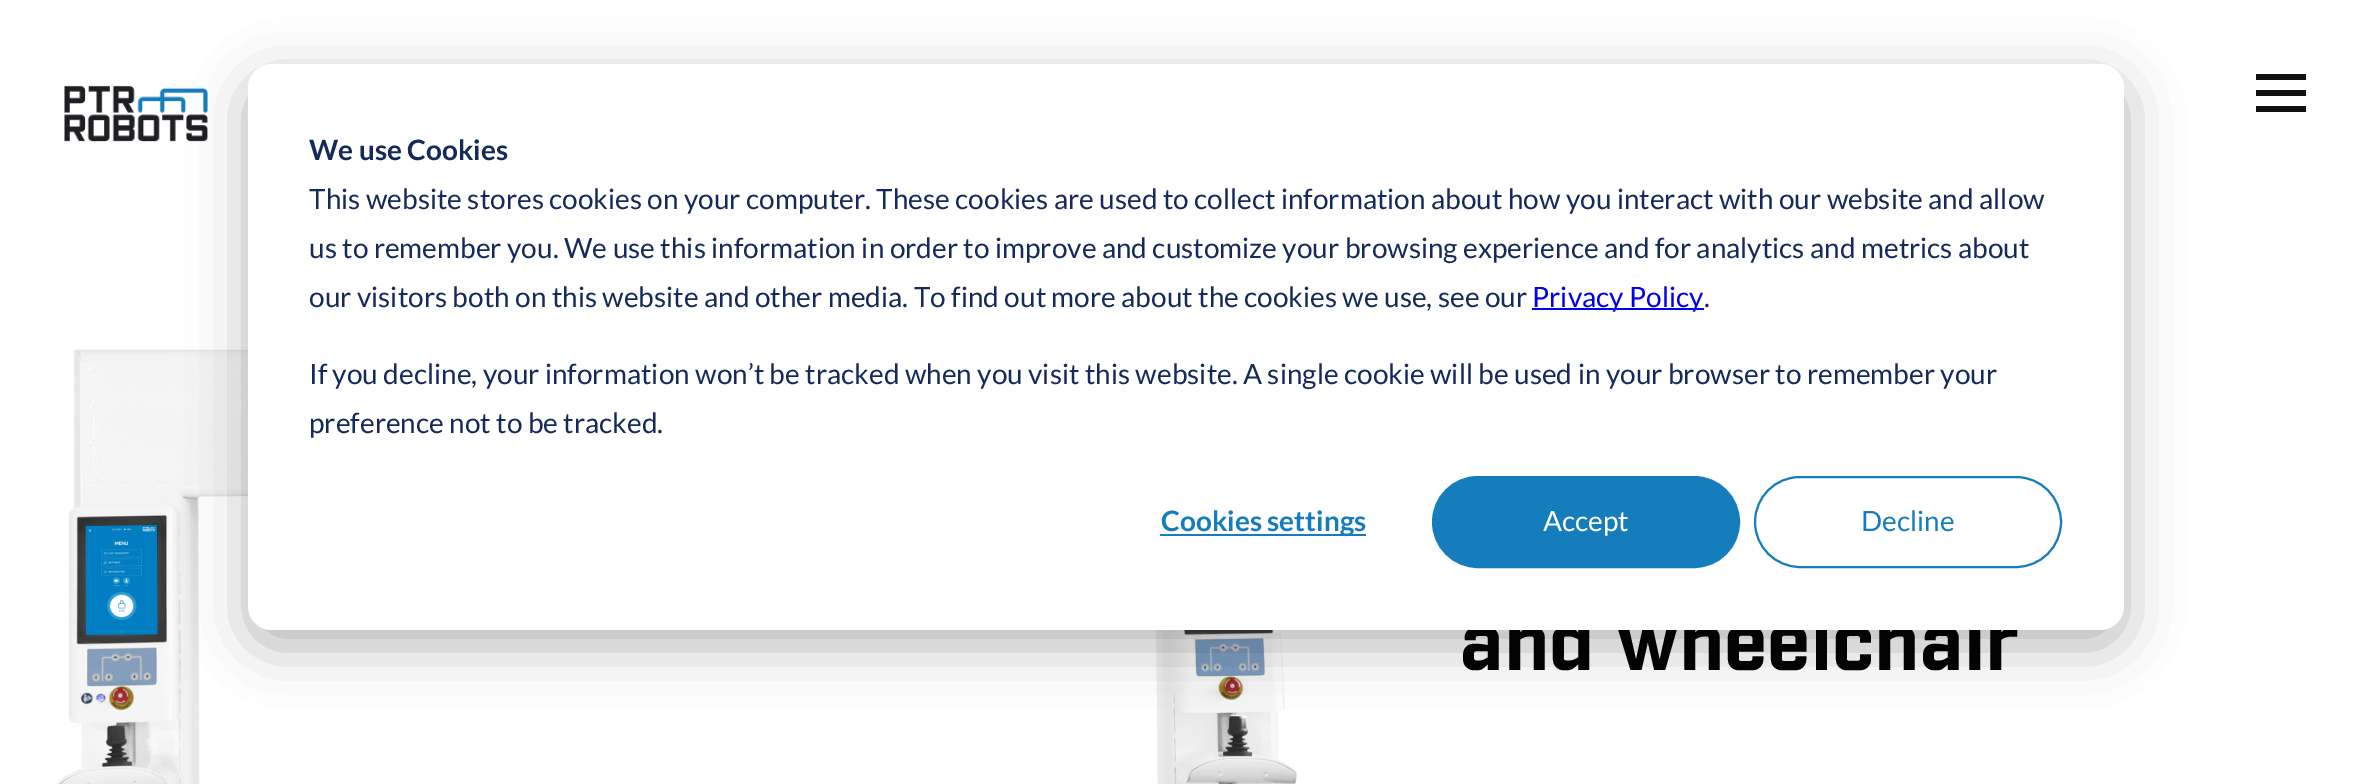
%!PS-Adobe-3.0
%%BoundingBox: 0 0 2370 784
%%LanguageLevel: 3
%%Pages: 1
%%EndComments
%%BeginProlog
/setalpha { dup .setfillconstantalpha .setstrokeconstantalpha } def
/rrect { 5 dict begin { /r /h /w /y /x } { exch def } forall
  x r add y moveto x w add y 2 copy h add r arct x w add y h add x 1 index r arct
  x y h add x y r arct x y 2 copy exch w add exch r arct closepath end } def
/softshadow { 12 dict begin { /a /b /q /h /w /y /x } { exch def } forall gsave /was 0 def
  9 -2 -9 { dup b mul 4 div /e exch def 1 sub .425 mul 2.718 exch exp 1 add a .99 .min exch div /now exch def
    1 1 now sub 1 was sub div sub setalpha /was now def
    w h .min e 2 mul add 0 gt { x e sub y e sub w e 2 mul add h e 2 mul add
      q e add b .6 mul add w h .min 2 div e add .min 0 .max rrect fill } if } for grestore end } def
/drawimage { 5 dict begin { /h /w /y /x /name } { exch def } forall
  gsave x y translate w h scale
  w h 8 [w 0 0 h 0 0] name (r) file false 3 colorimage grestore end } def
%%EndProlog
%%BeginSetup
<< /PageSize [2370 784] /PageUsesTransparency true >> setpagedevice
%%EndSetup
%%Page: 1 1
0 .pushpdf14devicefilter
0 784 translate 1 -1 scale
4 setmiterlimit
1 setgray
0 0 2370 784 rectfill
(images/1.raw) 64 85 144 57 drawimage
(images/2.raw) 57 323 1240 461 drawimage
0 setgray
248 80 1876 566 24 28 0.28 softshadow
0.067 setgray
2256 74 50 6 rectfill
2256 90 50 6 rectfill
2256 106 50 6 rectfill
/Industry-Bold [80 0 0 -80 0 0] selectfont
0.012 setgray
1460 670 moveto (and wheelchair) show
1 setgray
248 64 1876 566 24 rrect fill
0.086 0.49 0.737 setrgbcolor
2 setlinewidth
1755 477 306 90 45 rrect stroke
/Lato-Regular [28 0 0 -28 0 0] selectfont
1861 531 moveto (Decline) show
1433 477 306 90 45 rrect gsave fill grestore
stroke
1 setgray
1543 531 moveto (Accept) show
0.086 0.49 0.737 setrgbcolor
1160 534 206 2 rectfill
/Lato-Bold [28 0 0 -28 0 0] selectfont
1161 531 moveto (Cookies settings) show
/Lato-Regular [28 0 0 -28 0 0] selectfont
0.082 0.161 0.353 setrgbcolor
309 433 moveto (preference not to be tracked.) show
309 384 moveto (If you decline, your information won’t be tracked when you visit this website. A single cookie will be used in your browser to remember your) show
1704 307 moveto (.) show
0 0 0.933 setrgbcolor
1532 308 172 2 rectfill
1532 307 moveto (Privacy Policy) show
0.082 0.161 0.353 setrgbcolor
309 307 moveto (our visitors both on this website and other media. To find out more about the cookies we use, see our) show
309 258 moveto (us to remember you. We use this information in order to improve and customize your browsing experience and for analytics and metrics about) show
309 209 moveto (This website stores cookies on your computer. These cookies are used to collect information about how you interact with our website and allow) show
/Lato-Bold [28 0 0 -28 0 0] selectfont
309 160 moveto (We use Cookies) show
.poppdf14devicefilter showpage
%%EOF
